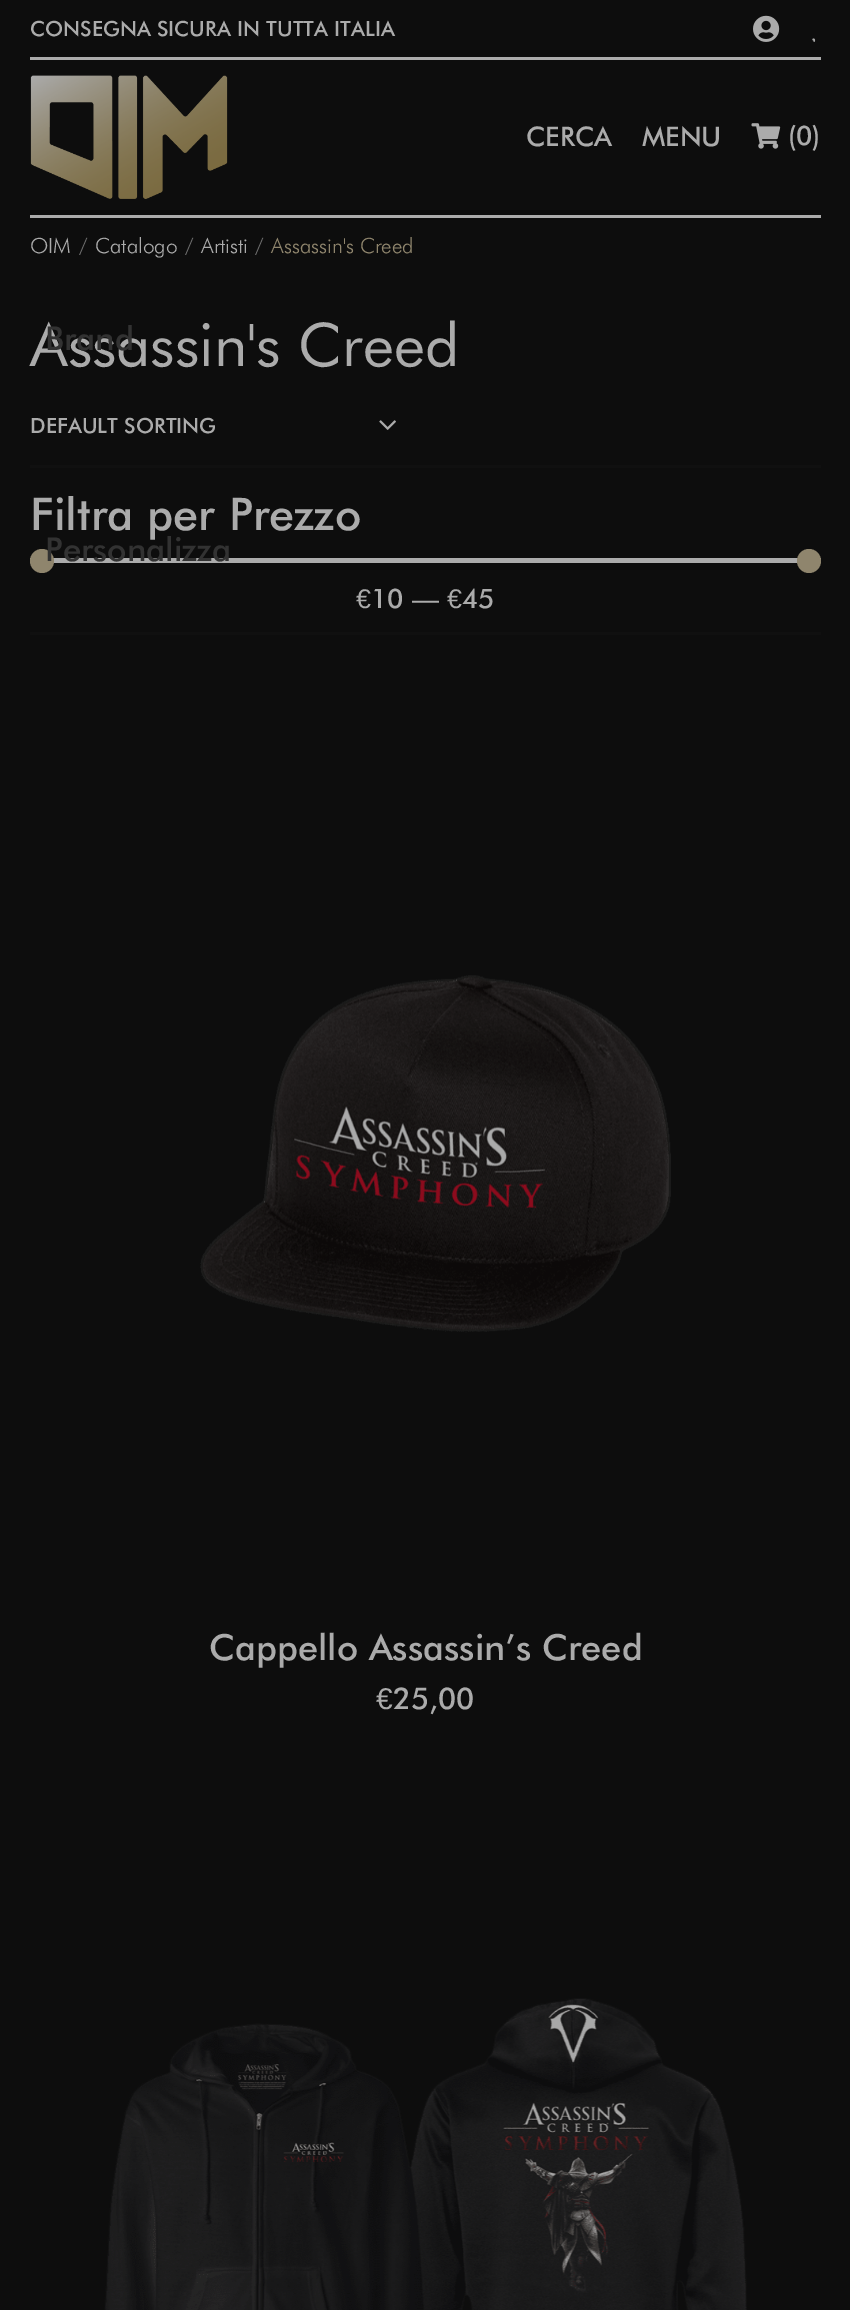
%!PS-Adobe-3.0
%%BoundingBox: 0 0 850 2310
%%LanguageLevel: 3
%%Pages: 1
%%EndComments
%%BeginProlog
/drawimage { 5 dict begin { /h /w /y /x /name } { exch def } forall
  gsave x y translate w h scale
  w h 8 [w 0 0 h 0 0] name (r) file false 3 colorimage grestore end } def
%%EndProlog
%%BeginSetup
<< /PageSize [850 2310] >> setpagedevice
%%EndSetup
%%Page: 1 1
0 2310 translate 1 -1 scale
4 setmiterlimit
0.051 setgray
0 0 850 2310 rectfill
0.671 setgray
30 57 791 3 rectfill
(images/1.raw) 753 15 27 27 drawimage
(images/2.raw) 812 38 4 4 drawimage
30 215 791 3 rectfill
(images/3.raw) 30 75 198 124 drawimage
(images/4.raw) 751 123 30 26 drawimage
(images/5.raw) 379 420 17 10 drawimage
0.063 setgray
30 465 791 3 rectfill
0.671 setgray
30 558 791 5 rectfill
0.561 0.522 0.427 setrgbcolor
newpath 42 561 12 0 360 arc closepath fill
newpath 809 561 12 0 360 arc closepath fill
0.063 setgray
30 632 791 3 rectfill
(images/6.raw) 200 975 471 358 drawimage
(images/7.raw) 104 1998 643 312 drawimage
/Futura-Medium [21 0 0 -21 0 0] selectfont
0.671 setgray
30 36 moveto (CONSEGNA SICURA IN TUTTA ITALIA) show
/Futura-Medium [27 0 0 -27 0 0] selectfont
526 146 moveto (CERCA) show
642 146 moveto (MENU) show
788 145 moveto (\(0\)) show
/Futura-Light [21 0 0 -21 0 0] selectfont
30 253 moveto (OIM) show
0.431 setgray
79 253 moveto (/) show
0.671 setgray
95 253 moveto (Catalogo) show
0.431 setgray
185 253 moveto (/) show
0.671 setgray
201 253 moveto (Artisti) show
0.431 setgray
255 253 moveto (/) show
0.561 0.522 0.427 setrgbcolor
271 253 moveto (Assassin's Creed) show
/Futura-Regular [60 0 0 -60 0 0] selectfont
0.671 setgray
30 366 moveto (Assassin's Creed) show
/Futura-Medium [21 0 0 -21 0 0] selectfont
30 433 moveto (DEFAULT SORTING) show
/Futura-Medium [45 0 0 -45 0 0] selectfont
30 530 moveto (Filtra per Prezzo) show
/LiberationSans-Regular [27 0 0 -27 0 0] selectfont
356 608 moveto (€) show
/Futura-Medium [27 0 0 -27 0 0] selectfont
371 608 moveto (10 —) show
/LiberationSans-Regular [27 0 0 -27 0 0] selectfont
447 608 moveto (€) show
/Futura-Medium [27 0 0 -27 0 0] selectfont
462 608 moveto (45) show
/Futura-Medium [36 0 0 -36 0 0] selectfont
209 1660 moveto (Cappello Assassin’s Creed) show
/LiberationSans-Regular [30 0 0 -30 0 0] selectfont
376 1709 moveto (€) show
/Futura-Medium [30 0 0 -30 0 0] selectfont
393 1709 moveto (25,00) show
/Futura-Medium [33 0 0 -33 0 0] selectfont
0.196 setgray
45 350 moveto (Brand) show
45 561 moveto (Personalizza) show
showpage
%%EOF
